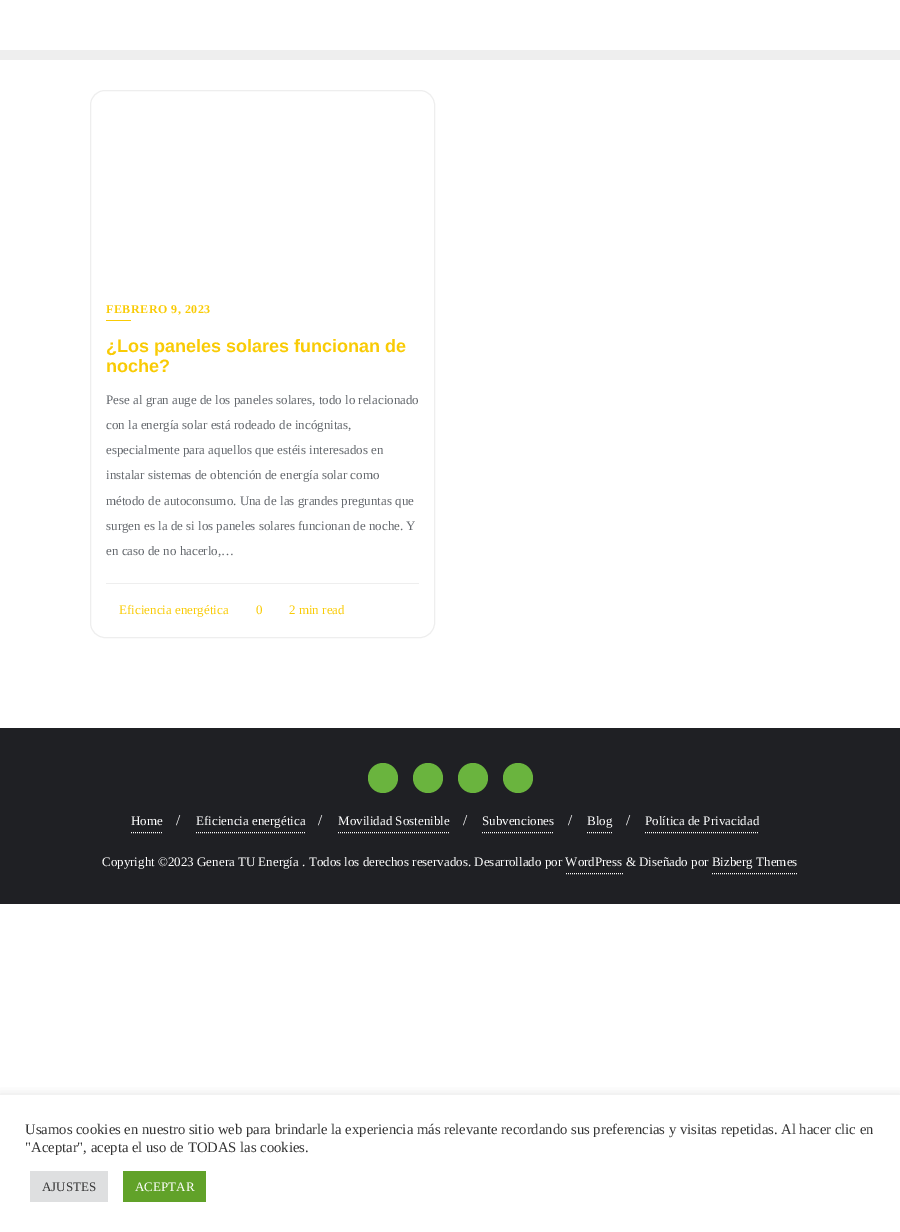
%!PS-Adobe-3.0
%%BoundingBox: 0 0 900 1232
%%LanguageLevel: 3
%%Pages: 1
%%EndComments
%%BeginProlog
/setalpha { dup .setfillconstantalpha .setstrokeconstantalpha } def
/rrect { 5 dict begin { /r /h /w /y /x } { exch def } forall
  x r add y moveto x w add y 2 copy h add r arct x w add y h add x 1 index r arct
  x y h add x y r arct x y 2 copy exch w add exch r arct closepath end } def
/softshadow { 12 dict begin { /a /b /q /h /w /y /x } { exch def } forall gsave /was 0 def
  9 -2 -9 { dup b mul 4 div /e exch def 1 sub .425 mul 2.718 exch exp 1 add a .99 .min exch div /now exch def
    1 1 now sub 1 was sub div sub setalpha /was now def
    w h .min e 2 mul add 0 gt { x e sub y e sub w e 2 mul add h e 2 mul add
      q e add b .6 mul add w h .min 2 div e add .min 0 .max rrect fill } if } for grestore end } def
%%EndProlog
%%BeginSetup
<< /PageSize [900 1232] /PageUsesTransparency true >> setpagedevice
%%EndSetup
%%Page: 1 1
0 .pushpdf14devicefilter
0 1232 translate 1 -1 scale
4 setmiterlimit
1 setgray
0 0 900 1232 rectfill
0.933 setgray
0 50 900 10 rectfill
90.5 90.5 344 547 14.5 rrect stroke
0.976 0.796 0.02 setrgbcolor
106 320 25 1 rectfill
0.933 setgray
106 583 313 1 rectfill
0.122 0.125 0.141 setrgbcolor
0 728 900 176 rectfill
0.416 0.706 0.243 setrgbcolor
newpath 383 778 15 0 360 arc closepath fill
newpath 428 778 15 0 360 arc closepath fill
newpath 473 778 15 0 360 arc closepath fill
newpath 518 778 15 0 360 arc closepath fill
1 setgray
[1 1] 0 setdash
newpath 131 832.5 moveto 163 832.5 lineto stroke
newpath 196 832.5 moveto 305 832.5 lineto stroke
newpath 338 832.5 moveto 449 832.5 lineto stroke
newpath 482 832.5 moveto 554 832.5 lineto stroke
newpath 587 832.5 moveto 612 832.5 lineto stroke
newpath 645 832.5 moveto 759 832.5 lineto stroke
newpath 566 873.5 moveto 623 873.5 lineto stroke
newpath 712 873.5 moveto 798 873.5 lineto stroke
gsave
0 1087 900 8 rectclip
0.675 0.671 0.671 setrgbcolor
0 1094 900 137 0 5 0.3 softshadow
grestore
0.871 0.875 0.878 setrgbcolor
30 1171 78 31 rectfill
0.38 0.635 0.161 setrgbcolor
123 1171 83 31 rectfill
/LiberationSerif-Bold [12 0 0 -12 0 0] selectfont
0.976 0.796 0.02 setrgbcolor
106 313 moveto 0.5 0 (FEBRERO 9, 2023) ashow
/LiberationSans-Bold [18 0 0 -18 0 0] selectfont
106 352 moveto (¿Los paneles solares funcionan de) show
106 372 moveto (noche?) show
/LiberationSerif-Regular [13 0 0 -13 0 0] selectfont
0.392 0.408 0.427 setrgbcolor
106 404 moveto (Pese al gran auge de los paneles solares, todo lo relacionado) show
106 429 moveto (con la energía solar está rodeado de incógnitas,) show
106 454 moveto (especialmente para aquellos que estéis interesados en) show
106 479 moveto (instalar sistemas de obtención de energía solar como) show
106 505 moveto (método de autoconsumo. Una de las grandes preguntas que) show
106 530 moveto (surgen es la de si los paneles solares funcionan de noche. Y) show
106 555 moveto (en caso de no hacerlo,…) show
0.976 0.796 0.02 setrgbcolor
119 614 moveto (Eficiencia energética) show
256 614 moveto (0) show
289 614 moveto (2 min read) show
1 setgray
131 825 moveto (Home) show
/LiberationSerif-Regular [15 0 0 -15 0 0] selectfont
176 825 moveto (/) show
/LiberationSerif-Regular [13 0 0 -13 0 0] selectfont
196 825 moveto (Eficiencia energética) show
/LiberationSerif-Regular [15 0 0 -15 0 0] selectfont
318 825 moveto (/) show
/LiberationSerif-Regular [13 0 0 -13 0 0] selectfont
338 825 moveto (Movilidad Sostenible) show
/LiberationSerif-Regular [15 0 0 -15 0 0] selectfont
463 825 moveto (/) show
/LiberationSerif-Regular [13 0 0 -13 0 0] selectfont
482 825 moveto (Subvenciones) show
/LiberationSerif-Regular [15 0 0 -15 0 0] selectfont
568 825 moveto (/) show
/LiberationSerif-Regular [13 0 0 -13 0 0] selectfont
587 825 moveto (Blog) show
/LiberationSerif-Regular [15 0 0 -15 0 0] selectfont
626 825 moveto (/) show
/LiberationSerif-Regular [13 0 0 -13 0 0] selectfont
645 825 moveto (Política de Privacidad) show
102 866 moveto (Copyright ©2023 Genera TU Energía . Todos los derechos reservados. Desarrollado por WordPress & Diseñado por Bizberg Themes) show
/LiberationSerif-Regular [14.67 0 0 -14.67 0 0] selectfont
0.2 setgray
25 1134 moveto (Usamos cookies en nuestro sitio web para brindarle la experiencia más relevante recordando sus preferencias y visitas repetidas. Al hacer clic en) show
25 1152 moveto ("Aceptar", acepta el uso de TODAS las cookies.) show
/LiberationSerif-Regular [13 0 0 -13 0 0] selectfont
42 1191 moveto (AJUSTES) show
1 setgray
135 1191 moveto (ACEPTAR) show
.poppdf14devicefilter showpage
%%EOF
